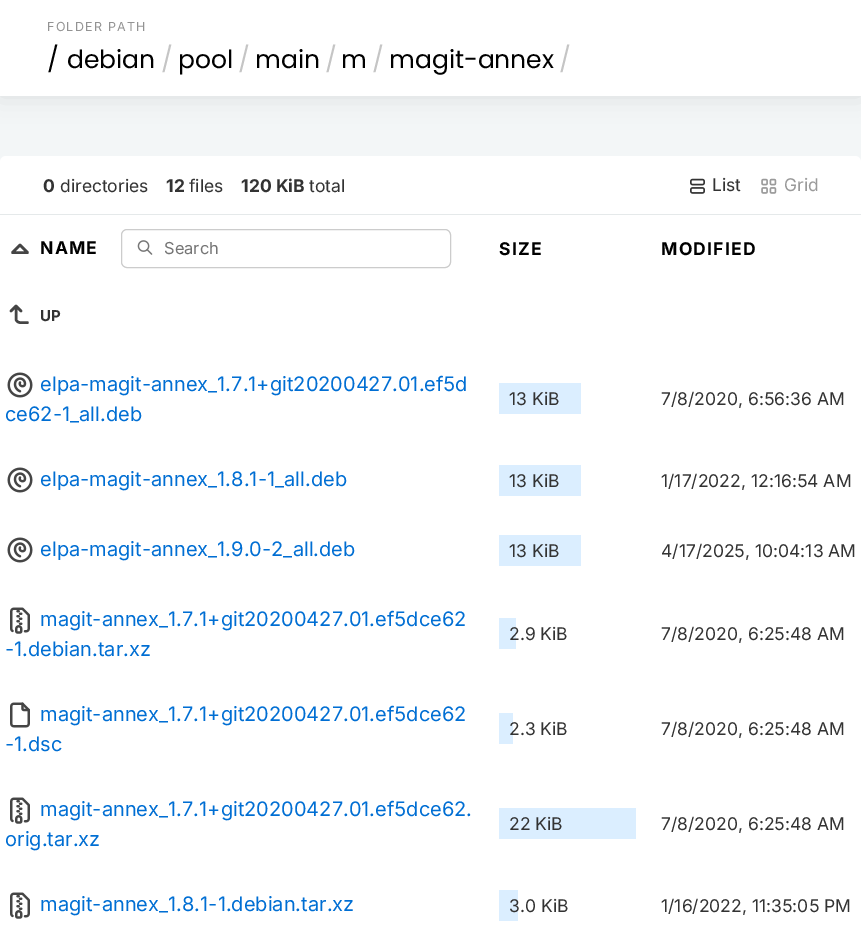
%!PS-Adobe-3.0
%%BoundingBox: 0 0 861 948
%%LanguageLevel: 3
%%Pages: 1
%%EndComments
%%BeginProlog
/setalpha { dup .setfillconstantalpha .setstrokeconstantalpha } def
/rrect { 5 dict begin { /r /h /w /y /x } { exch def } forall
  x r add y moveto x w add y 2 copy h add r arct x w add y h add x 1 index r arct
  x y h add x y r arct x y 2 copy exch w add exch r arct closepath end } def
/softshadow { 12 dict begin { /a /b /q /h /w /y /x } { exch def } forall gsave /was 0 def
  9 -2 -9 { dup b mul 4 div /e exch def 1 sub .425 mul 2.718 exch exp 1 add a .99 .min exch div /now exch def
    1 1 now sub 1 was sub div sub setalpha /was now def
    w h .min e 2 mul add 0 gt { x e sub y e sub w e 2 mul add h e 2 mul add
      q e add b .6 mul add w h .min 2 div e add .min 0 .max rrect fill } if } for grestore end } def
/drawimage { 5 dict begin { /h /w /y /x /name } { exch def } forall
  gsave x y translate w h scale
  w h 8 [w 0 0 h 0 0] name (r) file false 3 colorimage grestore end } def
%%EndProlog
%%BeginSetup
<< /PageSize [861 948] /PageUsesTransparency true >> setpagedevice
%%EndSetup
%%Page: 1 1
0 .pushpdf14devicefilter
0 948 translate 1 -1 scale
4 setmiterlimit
0.953 0.965 0.969 setrgbcolor
0 0 861 948 rectfill
0 setgray
0 0 861 96 0 12.5 0.1 softshadow
1 setgray
0 0 861 96 rectfill
0 156 861 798 6 rrect fill
0.898 0.914 0.918 setrgbcolor
0 214 861 1 rectfill
(images/1.raw) 690 178 15 16 drawimage
(images/2.raw) 761 178 16 16 drawimage
0.271 setgray
2.5 setlinewidth
1 setlinecap
1 setlinejoin
newpath 27.5 252.5 moveto 20 245 lineto 12.5 252.5 lineto 27.5 252.5 lineto stroke
(images/3.raw) 137 240 16 15 drawimage
0.8 setgray
1 setlinewidth
0 setlinecap
0 setlinejoin
121.5 229.5 329 38 5.5 rrect stroke
0.271 setgray
2.5 setlinewidth
1 setlinecap
1 setlinejoin
newpath 27.5 322.5 moveto 20 322.5 lineto 18 322.5 16 321 16 319 curveto 16 306 lineto 11 311 lineto 21 311 moveto 16 306 lineto stroke
(images/4.raw) 7 372 26 26 drawimage
0.859 0.933 1 setrgbcolor
499 383 82 31 rectfill
(images/4.raw) 7 467 26 26 drawimage
499 465 82 31 rectfill
(images/4.raw) 7 537 26 26 drawimage
499 535 82 31 rectfill
(images/5.raw) 10 607 20 27 drawimage
499 618 17 31 rectfill
(images/6.raw) 10 702 20 26 drawimage
499 713 14 31 rectfill
(images/5.raw) 10 797 20 27 drawimage
499 808 137 31 rectfill
(images/5.raw) 10 892 20 27 drawimage
499 890 19 31 rectfill
/Inter-Regular [12.5 0 0 -12.5 0 0] selectfont
0.576 setgray
47 31 moveto 1.25 0 (FOLDER PATH) ashow
/Poppins-Regular [25 0 0 -25 0 0] selectfont
0 setgray
47 68 moveto (/) show
67 68 moveto (debian) show
0.773 setgray
161 68 moveto (/) show
0 setgray
178 68 moveto (pool) show
0.773 setgray
238 68 moveto (/) show
0 setgray
255 68 moveto (main) show
0.773 setgray
325 68 moveto (/) show
0 setgray
341 68 moveto (m) show
0.773 setgray
372 68 moveto (/) show
0 setgray
389 68 moveto (magit-annex) show
0.773 setgray
559 68 moveto (/) show
/Inter-Bold [17.5 0 0 -17.5 0 0] selectfont
0.2 setgray
43 192 moveto (0) show
/Inter-Regular [17.5 0 0 -17.5 0 0] selectfont
60 192 moveto (directories) show
/Inter-Bold [17.5 0 0 -17.5 0 0] selectfont
166 192 moveto (12) show
/Inter-Regular [17.5 0 0 -17.5 0 0] selectfont
189 192 moveto (files) show
/Inter-Bold [17.5 0 0 -17.5 0 0] selectfont
241 192 moveto (120 KiB) show
/Inter-Regular [17.5 0 0 -17.5 0 0] selectfont
309 192 moveto (total) show
712 191 moveto (List) show
0.604 setgray
784 191 moveto (Grid) show
/Inter-Bold [17.5 0 0 -17.5 0 0] selectfont
0 setgray
40 254 moveto 1.25 0 (NAME) ashow
/Inter-Regular [16.5 0 0 -16.5 0 0] selectfont
0.459 setgray
164 254 moveto (Search) show
/Inter-Bold [17.5 0 0 -17.5 0 0] selectfont
0 setgray
499 255 moveto 1.25 0 (SIZE) ashow
661 255 moveto 1.25 0 (MODIFIED) ashow
/Inter-Bold [15 0 0 -15 0 0] selectfont
0.2 setgray
40 321 moveto (UP) show
/Inter-Regular [20 0 0 -20 0 0] selectfont
0 0.431 0.827 setrgbcolor
40 391 moveto (elpa-magit-annex_1.7.1+git20200427.01.ef5d) show
5 421 moveto (ce62-1_all.deb) show
/Inter-Regular [17.5 0 0 -17.5 0 0] selectfont
0.2 setgray
509 405 moveto (13 KiB) show
661 405 moveto (7/8/2020, 6:56:36 AM) show
/Inter-Regular [20 0 0 -20 0 0] selectfont
0 0.431 0.827 setrgbcolor
40 486 moveto (elpa-magit-annex_1.8.1-1_all.deb) show
/Inter-Regular [17.5 0 0 -17.5 0 0] selectfont
0.2 setgray
509 487 moveto (13 KiB) show
661 487 moveto (1/17/2022, 12:16:54 AM) show
/Inter-Regular [20 0 0 -20 0 0] selectfont
0 0.431 0.827 setrgbcolor
40 556 moveto (elpa-magit-annex_1.9.0-2_all.deb) show
/Inter-Regular [17.5 0 0 -17.5 0 0] selectfont
0.2 setgray
509 557 moveto (13 KiB) show
661 557 moveto (4/17/2025, 10:04:13 AM) show
/Inter-Regular [20 0 0 -20 0 0] selectfont
0 0.431 0.827 setrgbcolor
40 626 moveto (magit-annex_1.7.1+git20200427.01.ef5dce62) show
5 656 moveto (-1.debian.tar.xz) show
/Inter-Regular [17.5 0 0 -17.5 0 0] selectfont
0.2 setgray
509 640 moveto (2.9 KiB) show
661 640 moveto (7/8/2020, 6:25:48 AM) show
/Inter-Regular [20 0 0 -20 0 0] selectfont
0 0.431 0.827 setrgbcolor
40 721 moveto (magit-annex_1.7.1+git20200427.01.ef5dce62) show
5 751 moveto (-1.dsc) show
/Inter-Regular [17.5 0 0 -17.5 0 0] selectfont
0.2 setgray
509 735 moveto (2.3 KiB) show
661 735 moveto (7/8/2020, 6:25:48 AM) show
/Inter-Regular [20 0 0 -20 0 0] selectfont
0 0.431 0.827 setrgbcolor
40 816 moveto (magit-annex_1.7.1+git20200427.01.ef5dce62.) show
5 846 moveto (orig.tar.xz) show
/Inter-Regular [17.5 0 0 -17.5 0 0] selectfont
0.2 setgray
509 830 moveto (22 KiB) show
661 830 moveto (7/8/2020, 6:25:48 AM) show
/Inter-Regular [20 0 0 -20 0 0] selectfont
0 0.431 0.827 setrgbcolor
40 911 moveto (magit-annex_1.8.1-1.debian.tar.xz) show
/Inter-Regular [17.5 0 0 -17.5 0 0] selectfont
0.2 setgray
509 912 moveto (3.0 KiB) show
661 912 moveto (1/16/2022, 11:35:05 PM) show
.poppdf14devicefilter showpage
%%EOF
